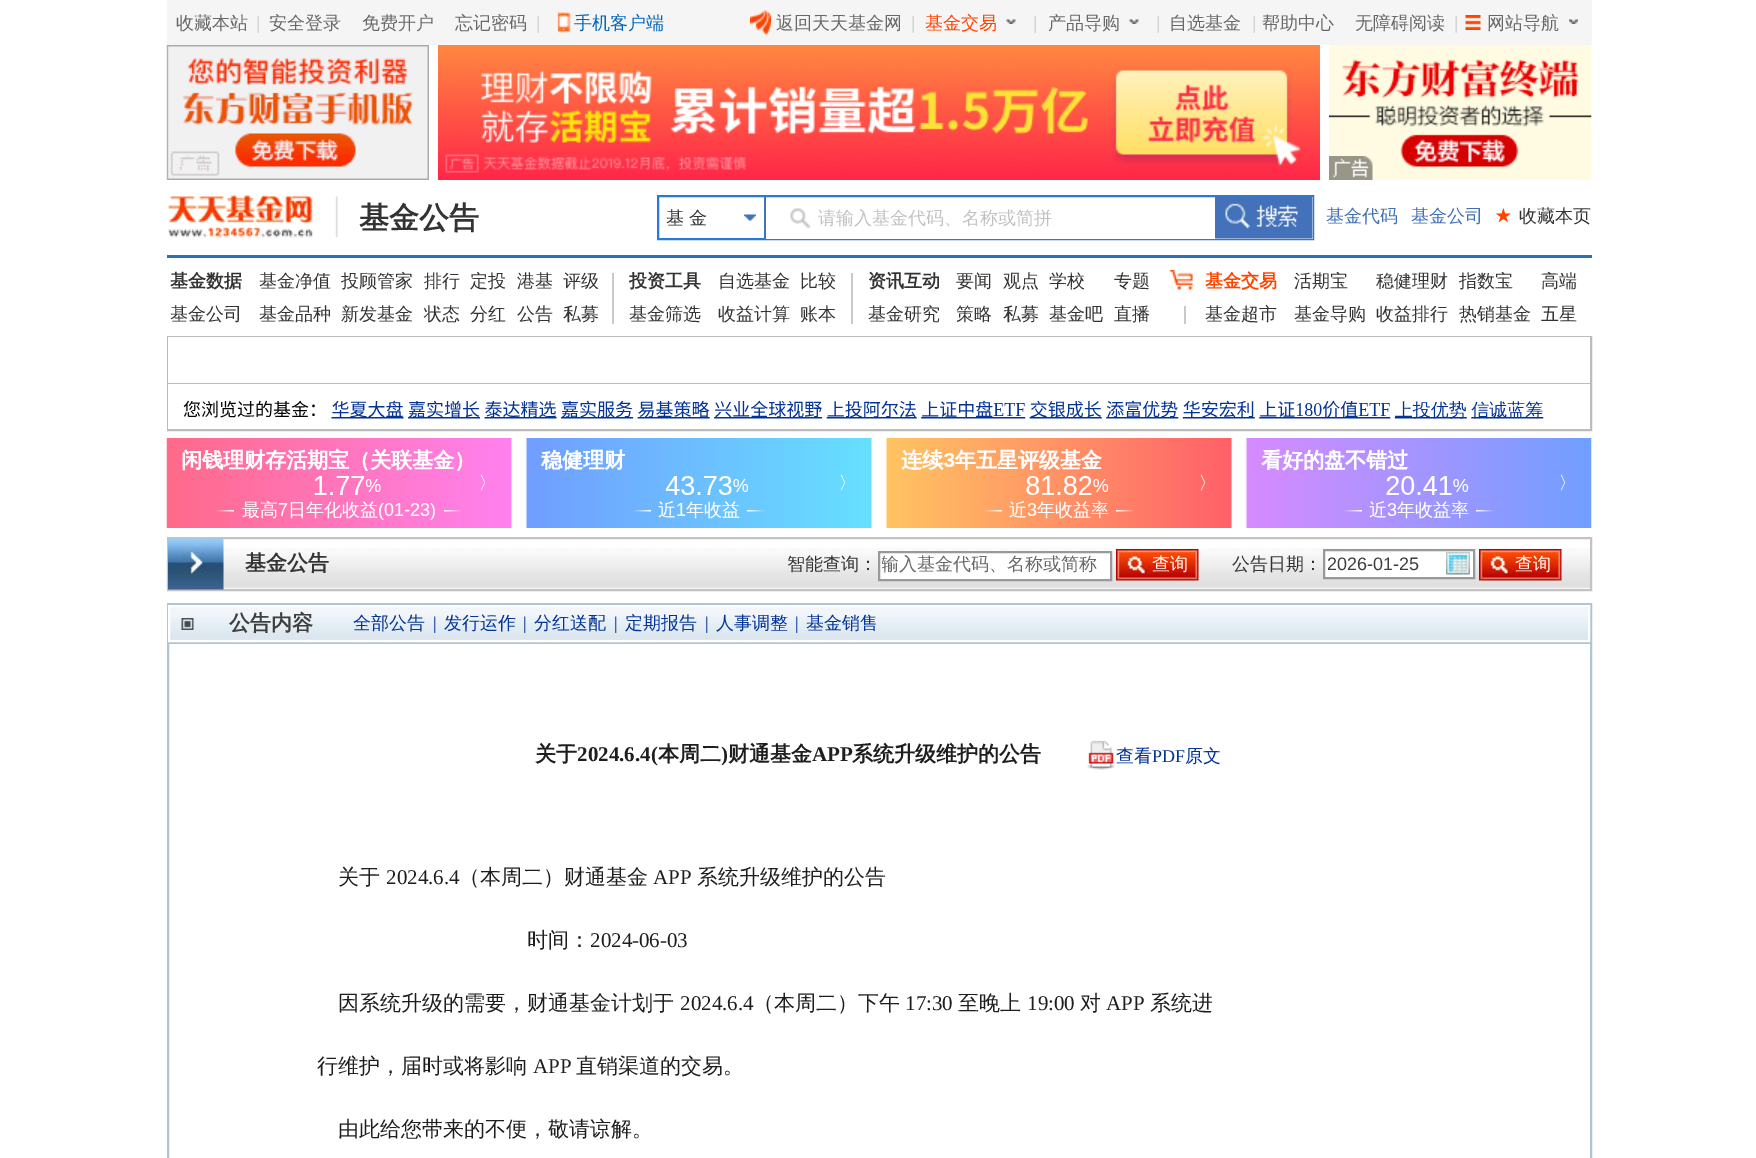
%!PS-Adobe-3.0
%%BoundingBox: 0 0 1756 1158
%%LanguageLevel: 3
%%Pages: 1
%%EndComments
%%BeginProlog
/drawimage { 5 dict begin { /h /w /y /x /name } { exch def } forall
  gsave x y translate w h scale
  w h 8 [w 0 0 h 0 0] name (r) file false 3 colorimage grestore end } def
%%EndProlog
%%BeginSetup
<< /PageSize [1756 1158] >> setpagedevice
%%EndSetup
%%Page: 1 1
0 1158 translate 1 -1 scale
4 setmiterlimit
1 setgray
0 0 1756 1158 rectfill
0.961 setgray
167 0 1425 45 rectfill
(images/1.raw) 557 12 14 21 drawimage
(images/2.raw) 750 10 21 25 drawimage
(images/3.raw) 1006 19 10 5 drawimage
(images/4.raw) 1129 19 10 5 drawimage
(images/5.raw) 1465 15 16 15 drawimage
(images/6.raw) 1569 19 9 5 drawimage
(images/7.raw) 166 45 263 135 drawimage
(images/8.raw) 438 45 882 135 drawimage
(images/9.raw) 1329 45 263 135 drawimage
(images/10.raw) 167 195 171 43 drawimage
0.161 0.475 0.863 setrgbcolor
2 setlinewidth
658 196 655 43 rectstroke
0.263 0.443 0.745 setrgbcolor
764 197 2 42 rectfill
(images/11.raw) 744 214 12 7 drawimage
1 setgray
766 238 449 1 rectfill
(images/12.raw) 790 208 21 21 drawimage
0.937 setgray
1215 197 98 42 rectfill
(images/13.raw) 1215 196 98 43 drawimage
0.153 0.447 0.714 setrgbcolor
167 255 1425 3 rectfill
0.788 setgray
612 273 2 51 rectfill
851 273 2 51 rectfill
(images/14.raw) 1169 270 24 20 drawimage
1184 306 2 18 rectfill
0.737 setgray
168 337 1423 93 rectstroke
168 383 1422 1 rectfill
1 setgray
168 337 1422 46 rectfill
(images/15.raw) 168 384 1422 45 drawimage
(images/16.raw) 166 438 1426 90 drawimage
(images/17.raw) 166 548 1424 41 drawimage
0.765 setgray
168 538 1423 52 rectstroke
(images/18.raw) 168 538 56 52 drawimage
1 setgray
newpath 879 552 moveto 1111 552 lineto 1111 580 lineto 879 580 lineto closepath gsave fill grestore
0.6 setgray
stroke
(images/19.raw) 1116 549 83 32 drawimage
1 setgray
1325 551 148 26 rectfill
(images/20.raw) 1446 552 24 23 drawimage
0.6 setgray
1324 550 150 28 rectstroke
(images/21.raw) 1479 549 83 32 drawimage
0.686 0.769 0.835 setrgbcolor
168 604 1423 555 rectstroke
168 642 1422 2 rectfill
(images/22.raw) 170 607 1418 33 drawimage
1 setgray
169 606 1420 35 rectstroke
(images/23.raw) 181 618 13 12 drawimage
(images/24.raw) 1087 740 28 30 drawimage
/WenQuanYiZenHei-Medium [18 0 0 -18 0 0] selectfont
0.408 setgray
176 29 moveto (收藏本站) show
/LiberationSans-Regular [18 0 0 -18 0 0] selectfont
0.831 setgray
256 29 moveto (|) show
/WenQuanYiZenHei-Medium [18 0 0 -18 0 0] selectfont
0.408 setgray
269 29 moveto (安全登录) show
362 29 moveto (免费开户) show
455 29 moveto (忘记密码) show
/LiberationSans-Regular [18 0 0 -18 0 0] selectfont
0.831 setgray
536 29 moveto (|) show
/WenQuanYiZenHei-Medium [18 0 0 -18 0 0] selectfont
0 0.4 0.733 setrgbcolor
574 29 moveto (手机客户端) show
0.408 setgray
776 29 moveto (返回天天基金网) show
/LiberationSans-Regular [18 0 0 -18 0 0] selectfont
0.831 setgray
911 29 moveto (|) show
/WenQuanYiZenHei-Medium [18 0 0 -18 0 0] selectfont
1 0.267 0 setrgbcolor
925 29 moveto (基金交易) show
/LiberationSans-Regular [18 0 0 -18 0 0] selectfont
0.831 setgray
1033 29 moveto (|) show
/WenQuanYiZenHei-Medium [18 0 0 -18 0 0] selectfont
0.408 setgray
1048 29 moveto (产品导购) show
/LiberationSans-Regular [18 0 0 -18 0 0] selectfont
0.831 setgray
1156 29 moveto (|) show
/WenQuanYiZenHei-Medium [18 0 0 -18 0 0] selectfont
0.408 setgray
1169 29 moveto (自选基金) show
/LiberationSans-Regular [18 0 0 -18 0 0] selectfont
0.831 setgray
1252 29 moveto (|) show
/WenQuanYiZenHei-Medium [18 0 0 -18 0 0] selectfont
0.408 setgray
1262 29 moveto (帮助中心) show
1355 29 moveto (无障碍阅读) show
/LiberationSans-Regular [18 0 0 -18 0 0] selectfont
0.831 setgray
1454 29 moveto (|) show
/WenQuanYiZenHei-Medium [18 0 0 -18 0 0] selectfont
0.408 setgray
1487 29 moveto (网站导航) show
/WenQuanYiZenHei-Bold [30 0 0 -30 0 0] selectfont
0.2 setgray
359 228 moveto (基金公告) show
/WenQuanYiZenHei-Medium [18 0 0 -18 0 0] selectfont
666 224 moveto (基) show
689 224 moveto (金) show
0.761 setgray
818 224 moveto (请输入基金代码、名称或简拼) show
0.251 0.443 0.714 setrgbcolor
1326 222 moveto (基金代码) show
1411 222 moveto (基金公司) show
/DejaVuSans-Bold [18 0 0 -18 0 0] selectfont
1 0.267 0 setrgbcolor
1495 222 moveto (★) show
/WenQuanYiZenHei-Medium [18 0 0 -18 0 0] selectfont
0.2 setgray
1519 222 moveto (收藏本页) show
/WenQuanYiZenHei-Bold [18 0 0 -18 0 0] selectfont
170 287 moveto (基金数据) show
/WenQuanYiZenHei-Medium [18 0 0 -18 0 0] selectfont
259 287 moveto (基金净值) show
341 287 moveto (投顾管家) show
424 287 moveto (排行) show
470 287 moveto (定投) show
517 287 moveto (港基) show
563 287 moveto (评级) show
170 320 moveto (基金公司) show
259 320 moveto (基金品种) show
341 320 moveto (新发基金) show
424 320 moveto (状态) show
470 320 moveto (分红) show
517 320 moveto (公告) show
563 320 moveto (私募) show
/WenQuanYiZenHei-Bold [18 0 0 -18 0 0] selectfont
629 287 moveto (投资工具) show
/WenQuanYiZenHei-Medium [18 0 0 -18 0 0] selectfont
718 287 moveto (自选基金) show
800 287 moveto (比较) show
629 320 moveto (基金筛选) show
718 320 moveto (收益计算) show
800 320 moveto (账本) show
/WenQuanYiZenHei-Bold [18 0 0 -18 0 0] selectfont
868 287 moveto (资讯互动) show
/WenQuanYiZenHei-Medium [18 0 0 -18 0 0] selectfont
956 287 moveto (要闻) show
1003 287 moveto (观点) show
1049 287 moveto (学校) show
1114 287 moveto (专题) show
868 320 moveto (基金研究) show
956 320 moveto (策略) show
1003 320 moveto (私募) show
1049 320 moveto (基金吧) show
1114 320 moveto (直播) show
/WenQuanYiZenHei-Bold [18 0 0 -18 0 0] selectfont
1 0.267 0 setrgbcolor
1205 287 moveto (基金交易) show
/WenQuanYiZenHei-Medium [18 0 0 -18 0 0] selectfont
0.2 setgray
1294 287 moveto (活期宝) show
1376 287 moveto (稳健理财) show
1459 287 moveto (指数宝) show
1541 287 moveto (高端) show
1205 320 moveto (基金超市) show
1294 320 moveto (基金导购) show
1376 320 moveto (收益排行) show
1459 320 moveto (热销基金) show
1541 320 moveto (五星) show
/WenQuanYiZenHei-Bold [21 0 0 -21 0 0] selectfont
245 570 moveto (基金公告) show
/WenQuanYiZenHei-Medium [18 0 0 -18 0 0] selectfont
787 570 moveto (智能查询：) show
gsave
882 552 225 26 rectclip
0.408 setgray
881 570 moveto (输入基金代码、名称或简称) show
grestore
1 setgray
1152 570 moveto (查询) show
0.2 setgray
1232 570 moveto (公告日期：) show
gsave
1328 554 142 21 rectclip
/LiberationSans-Regular [18 0 0 -18 0 0] selectfont
0.247 setgray
1327 570 moveto (2026-01-25) show
grestore
1 setgray
1515 570 moveto (查询) show
/WenQuanYiZenHei-Bold [21 0 0 -21 0 0] selectfont
0.247 setgray
229 630 moveto (公告内容) show
/WenQuanYiZenHei-Medium [18 0 0 -18 0 0] selectfont
0.016 0.2 0.588 setrgbcolor
353 629 moveto (全部公告) show
/LiberationSerif-Regular [18 0 0 -18 0 0] selectfont
433 629 moveto (|) show
/WenQuanYiZenHei-Medium [18 0 0 -18 0 0] selectfont
444 629 moveto (发行运作) show
/LiberationSerif-Regular [18 0 0 -18 0 0] selectfont
523 629 moveto (|) show
/WenQuanYiZenHei-Medium [18 0 0 -18 0 0] selectfont
534 629 moveto (分红送配) show
/LiberationSerif-Regular [18 0 0 -18 0 0] selectfont
614 629 moveto (|) show
/WenQuanYiZenHei-Medium [18 0 0 -18 0 0] selectfont
625 629 moveto (定期报告) show
/LiberationSerif-Regular [18 0 0 -18 0 0] selectfont
705 629 moveto (|) show
/WenQuanYiZenHei-Medium [18 0 0 -18 0 0] selectfont
716 629 moveto (人事调整) show
/LiberationSerif-Regular [18 0 0 -18 0 0] selectfont
795 629 moveto (|) show
/WenQuanYiZenHei-Medium [18 0 0 -18 0 0] selectfont
806 629 moveto (基金销售) show
/WenQuanYiZenHei-Bold [21 0 0 -21 0 0] selectfont
0.118 setgray
535 761 moveto (关于) show
/LiberationSerif-Bold [21 0 0 -21 0 0] selectfont
577 761 moveto (2024.6.4\() show
/WenQuanYiZenHei-Bold [21 0 0 -21 0 0] selectfont
658 761 moveto (本周二) show
/LiberationSerif-Bold [21 0 0 -21 0 0] selectfont
721 761 moveto (\)) show
/WenQuanYiZenHei-Bold [21 0 0 -21 0 0] selectfont
728 761 moveto (财通基金) show
/LiberationSerif-Bold [21 0 0 -21 0 0] selectfont
812 761 moveto (APP) show
/WenQuanYiZenHei-Bold [21 0 0 -21 0 0] selectfont
852 761 moveto (系统升级维护的公告) show
/WenQuanYiZenHei-Medium [18 0 0 -18 0 0] selectfont
0.016 0.2 0.588 setrgbcolor
1116 762 moveto (查看) show
/LiberationSerif-Regular [18 0 0 -18 0 0] selectfont
1152 762 moveto (PDF) show
/WenQuanYiZenHei-Medium [18 0 0 -18 0 0] selectfont
1185 762 moveto (原文) show
/WenQuanYiZenHei-Medium [21 0 0 -21 0 0] selectfont
0.118 setgray
338 884 moveto (关于) show
/LiberationSerif-Regular [21 0 0 -21 0 0] selectfont
386 884 moveto (2024.6.4) show
/WenQuanYiZenHei-Medium [21 0 0 -21 0 0] selectfont
459 884 moveto (（本周二）财通基金) show
/LiberationSerif-Regular [21 0 0 -21 0 0] selectfont
653 884 moveto (APP) show
/WenQuanYiZenHei-Medium [21 0 0 -21 0 0] selectfont
697 884 moveto (系统升级维护的公告) show
527 947 moveto (时间：) show
/LiberationSerif-Regular [21 0 0 -21 0 0] selectfont
590 947 moveto (2024-06-03) show
/WenQuanYiZenHei-Medium [21 0 0 -21 0 0] selectfont
338 1010 moveto (因系统升级的需要，财通基金计划于) show
/LiberationSerif-Regular [21 0 0 -21 0 0] selectfont
680 1010 moveto (2024.6.4) show
/WenQuanYiZenHei-Medium [21 0 0 -21 0 0] selectfont
753 1010 moveto (（本周二）下午) show
/LiberationSerif-Regular [21 0 0 -21 0 0] selectfont
905 1010 moveto (17:30) show
/WenQuanYiZenHei-Medium [21 0 0 -21 0 0] selectfont
958 1010 moveto (至晚上) show
/LiberationSerif-Regular [21 0 0 -21 0 0] selectfont
1027 1010 moveto (19:00) show
/WenQuanYiZenHei-Medium [21 0 0 -21 0 0] selectfont
1080 1010 moveto (对) show
/LiberationSerif-Regular [21 0 0 -21 0 0] selectfont
1106 1010 moveto (APP) show
/WenQuanYiZenHei-Medium [21 0 0 -21 0 0] selectfont
1150 1010 moveto (系统进) show
317 1073 moveto (行维护，届时或将影响) show
/LiberationSerif-Regular [21 0 0 -21 0 0] selectfont
533 1073 moveto (APP) show
/WenQuanYiZenHei-Medium [21 0 0 -21 0 0] selectfont
576 1073 moveto (直销渠道的交易。) show
338 1136 moveto (由此给您带来的不便，敬请谅解。) show
showpage
%%EOF
